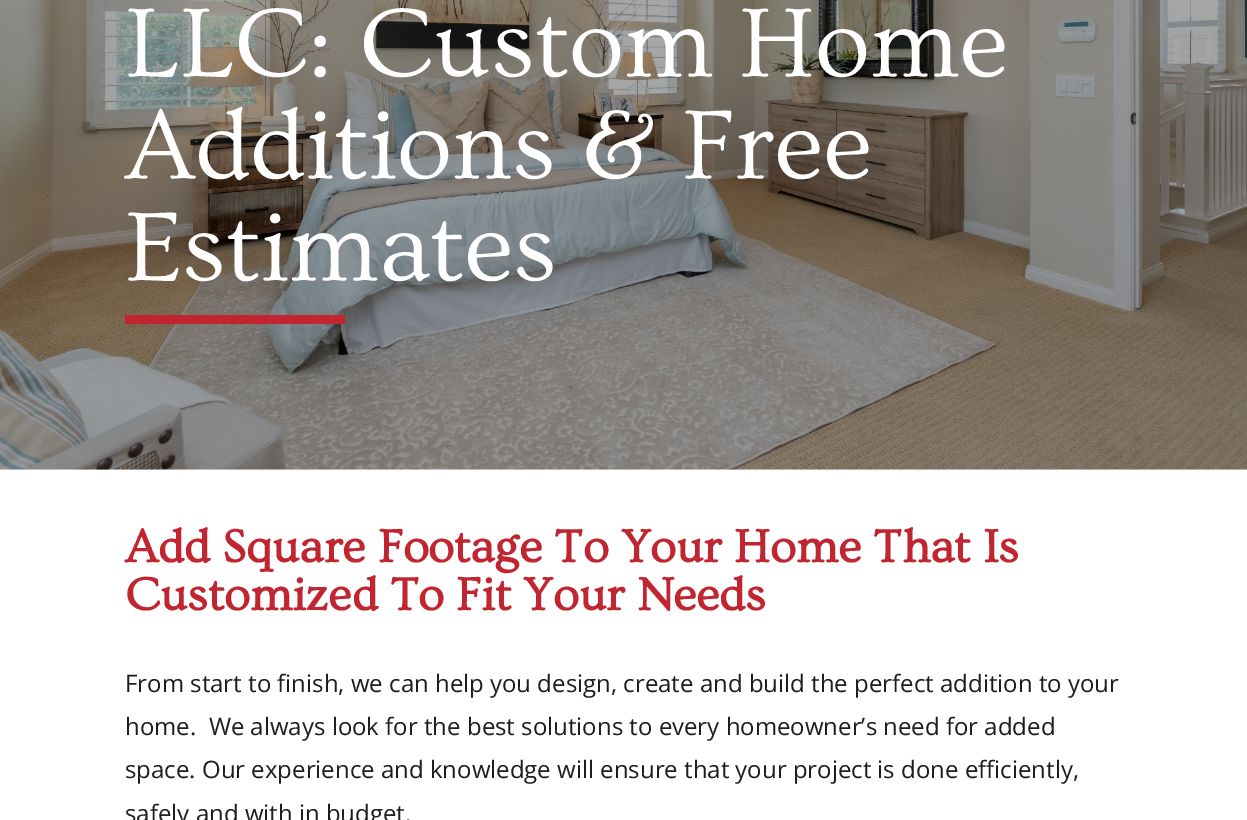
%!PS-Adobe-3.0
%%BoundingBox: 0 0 1247 820
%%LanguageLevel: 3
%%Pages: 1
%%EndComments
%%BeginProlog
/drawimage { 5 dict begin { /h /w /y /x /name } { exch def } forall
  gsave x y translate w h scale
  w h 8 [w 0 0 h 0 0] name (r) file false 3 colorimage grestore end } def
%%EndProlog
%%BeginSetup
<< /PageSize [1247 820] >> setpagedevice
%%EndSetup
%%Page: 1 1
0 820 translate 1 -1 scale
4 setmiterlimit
1 setgray
0 0 1247 820 rectfill
(images/1.raw) 0 0 1247 470 drawimage
0.757 0.145 0.188 setrgbcolor
125 315 220 9 rectfill
/Ovo-Regular [102 0 0 -102 0 0] selectfont
1 setgray
125 76 moveto (LLC: Custom Home) show
125 178 moveto (Additions & Free) show
125 280 moveto (Estimates) show
/Ovo-Bold [48 0 0 -48 0 0] selectfont
0.757 0.145 0.188 setrgbcolor
125 562 moveto (Add Square Footage To Your Home That Is) show
125 610 moveto (Customized To Fit Your Needs) show
/OpenSans-Regular [24 0 0 -24 0 0] selectfont
0.118 setgray
125 692 moveto (From start to finish, we can help you design, create and build the perfect addition to your) show
125 735 moveto (home.  We always look for the best solutions to every homeowner’s need for added) show
125 778 moveto (space. Our experience and knowledge will ensure that your project is done efficiently,) show
125 822 moveto (safely and with in budget.) show
showpage
%%EOF
